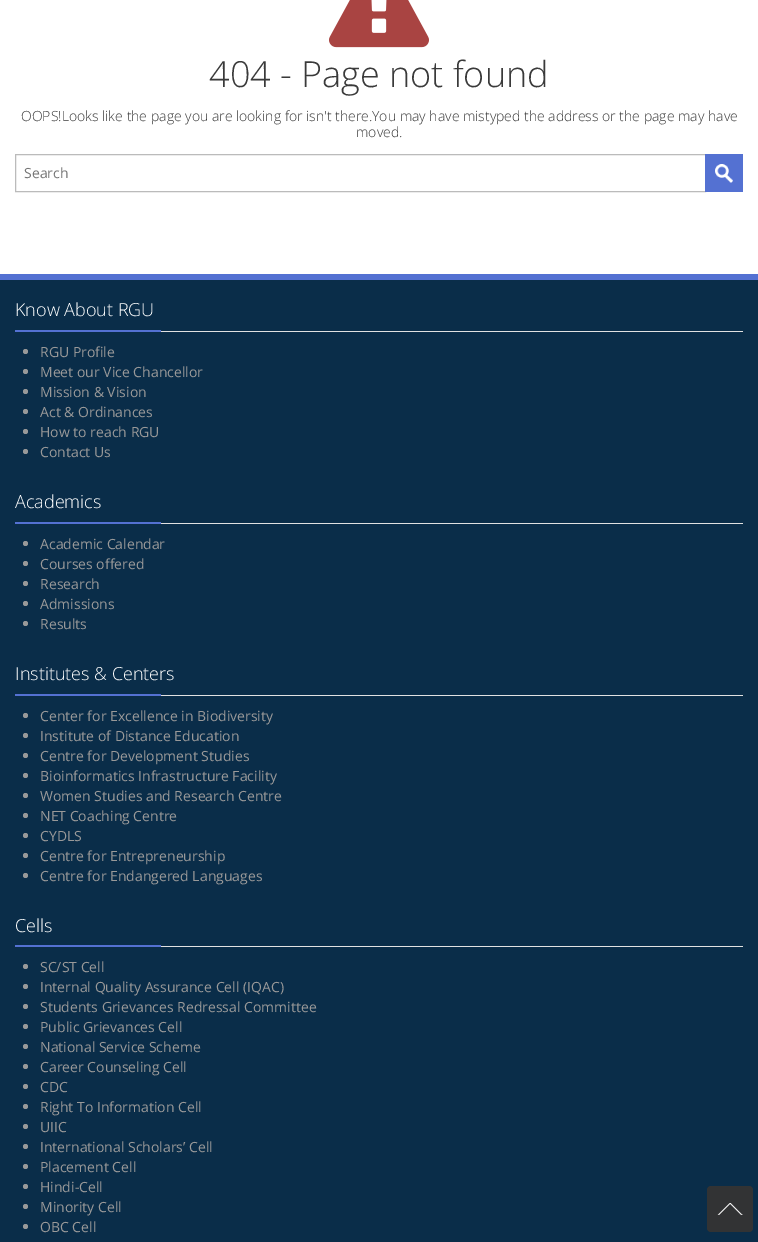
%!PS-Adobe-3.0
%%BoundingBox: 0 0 758 1242
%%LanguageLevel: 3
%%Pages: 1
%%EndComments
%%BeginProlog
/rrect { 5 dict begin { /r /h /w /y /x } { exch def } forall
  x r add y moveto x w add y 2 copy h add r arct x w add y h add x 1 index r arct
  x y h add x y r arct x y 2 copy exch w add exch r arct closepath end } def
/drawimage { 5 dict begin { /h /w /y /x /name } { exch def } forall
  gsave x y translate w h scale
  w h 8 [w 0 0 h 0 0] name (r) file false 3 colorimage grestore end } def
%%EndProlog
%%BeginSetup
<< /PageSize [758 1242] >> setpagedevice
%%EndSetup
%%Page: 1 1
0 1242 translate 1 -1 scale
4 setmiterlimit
0.039 0.176 0.286 setrgbcolor
0 0 758 1242 rectfill
1 setgray
0 0 758 274 rectfill
(images/1.raw) 329 0 100 48 drawimage
0.733 setgray
15.5 154.5 690 37 rectstroke
0.329 0.443 0.824 setrgbcolor
705 154 38 38 rectfill
(images/2.raw) 715 164 18 19 drawimage
0 274 758 6 rectfill
15 330 146 2 rectfill
0.882 setgray
161 331 582 1 rectfill
0.6 setgray
newpath 25.5 351.5 2.5 0 360 arc closepath fill
newpath 25.5 371.5 2.5 0 360 arc closepath fill
newpath 25.5 391.5 2.5 0 360 arc closepath fill
newpath 25.5 411.5 2.5 0 360 arc closepath fill
newpath 25.5 431.5 2.5 0 360 arc closepath fill
newpath 25.5 451.5 2.5 0 360 arc closepath fill
0.329 0.443 0.824 setrgbcolor
15 522 146 2 rectfill
0.882 setgray
161 523 582 1 rectfill
0.6 setgray
newpath 25.5 543.5 2.5 0 360 arc closepath fill
newpath 25.5 563.5 2.5 0 360 arc closepath fill
newpath 25.5 583.5 2.5 0 360 arc closepath fill
newpath 25.5 603.5 2.5 0 360 arc closepath fill
newpath 25.5 623.5 2.5 0 360 arc closepath fill
0.329 0.443 0.824 setrgbcolor
15 694 146 2 rectfill
0.882 setgray
161 695 582 1 rectfill
0.6 setgray
newpath 25.5 715.5 2.5 0 360 arc closepath fill
newpath 25.5 735.5 2.5 0 360 arc closepath fill
newpath 25.5 755.5 2.5 0 360 arc closepath fill
newpath 25.5 775.5 2.5 0 360 arc closepath fill
newpath 25.5 795.5 2.5 0 360 arc closepath fill
newpath 25.5 815.5 2.5 0 360 arc closepath fill
newpath 25.5 835.5 2.5 0 360 arc closepath fill
newpath 25.5 855.5 2.5 0 360 arc closepath fill
newpath 25.5 875.5 2.5 0 360 arc closepath fill
0.329 0.443 0.824 setrgbcolor
15 945 146 2 rectfill
0.882 setgray
161 946 582 1 rectfill
0.6 setgray
newpath 25.5 966.5 2.5 0 360 arc closepath fill
newpath 25.5 986.5 2.5 0 360 arc closepath fill
newpath 25.5 1006.5 2.5 0 360 arc closepath fill
newpath 25.5 1026.5 2.5 0 360 arc closepath fill
newpath 25.5 1046.5 2.5 0 360 arc closepath fill
newpath 25.5 1066.5 2.5 0 360 arc closepath fill
newpath 25.5 1086.5 2.5 0 360 arc closepath fill
newpath 25.5 1106.5 2.5 0 360 arc closepath fill
newpath 25.5 1126.5 2.5 0 360 arc closepath fill
newpath 25.5 1146.5 2.5 0 360 arc closepath fill
newpath 25.5 1166.5 2.5 0 360 arc closepath fill
newpath 25.5 1186.5 2.5 0 360 arc closepath fill
newpath 25.5 1206.5 2.5 0 360 arc closepath fill
newpath 25.5 1226.5 2.5 0 360 arc closepath fill
0.196 0.2 0.204 setrgbcolor
707 1186 46 46 4 rrect fill
(images/3.raw) 717 1203 26 12 drawimage
/OpenSans-Light [36 0 0 -36 0 0] selectfont
0.227 setgray
209 87 moveto (404 - Page not found) show
/OpenSans-Light [14 0 0 -14 0 0] selectfont
21 121 moveto (OOPS!Looks like the page you are looking for isn't there.You may have mistyped the address or the page may have) show
356 137 moveto (moved.) show
/OpenSans-Regular [14 0 0 -14 0 0] selectfont
0.459 setgray
24 178 moveto (Search) show
/OpenSans-Light [18 0 0 -18 0 0] selectfont
1 setgray
15 316 moveto (Know About RGU) show
/OpenSans-Regular [14 0 0 -14 0 0] selectfont
0.6 setgray
40 357 moveto (RGU Profile) show
40 377 moveto (Meet our Vice Chancellor) show
40 397 moveto (Mission & Vision) show
40 417 moveto (Act & Ordinances) show
40 437 moveto (How to reach RGU) show
40 457 moveto (Contact Us) show
/OpenSans-Light [18 0 0 -18 0 0] selectfont
1 setgray
15 508 moveto (Academics) show
/OpenSans-Regular [14 0 0 -14 0 0] selectfont
0.6 setgray
40 549 moveto (Academic Calendar) show
40 569 moveto (Courses offered) show
40 589 moveto (Research) show
40 609 moveto (Admissions) show
40 629 moveto (Results) show
/OpenSans-Light [18 0 0 -18 0 0] selectfont
1 setgray
15 680 moveto (Institutes & Centers) show
/OpenSans-Regular [14 0 0 -14 0 0] selectfont
0.6 setgray
40 721 moveto (Center for Excellence in Biodiversity) show
40 741 moveto (Institute of Distance Education) show
40 761 moveto (Centre for Development Studies) show
40 781 moveto (Bioinformatics Infrastructure Facility) show
40 801 moveto (Women Studies and Research Centre) show
40 821 moveto (NET Coaching Centre) show
40 841 moveto (CYDLS) show
40 861 moveto (Centre for Entrepreneurship) show
40 881 moveto (Centre for Endangered Languages) show
/OpenSans-Light [18 0 0 -18 0 0] selectfont
1 setgray
15 932 moveto (Cells) show
/OpenSans-Regular [14 0 0 -14 0 0] selectfont
0.6 setgray
40 972 moveto (SC/ST Cell) show
40 992 moveto (Internal Quality Assurance Cell \(IQAC\)) show
40 1012 moveto (Students Grievances Redressal Committee) show
40 1032 moveto (Public Grievances Cell) show
40 1052 moveto (National Service Scheme) show
40 1072 moveto (Career Counseling Cell) show
40 1092 moveto (CDC) show
40 1112 moveto (Right To Information Cell) show
40 1132 moveto (UIIC) show
40 1152 moveto (International Scholars’ Cell) show
40 1172 moveto (Placement Cell) show
40 1192 moveto (Hindi-Cell) show
40 1212 moveto (Minority Cell) show
40 1232 moveto (OBC Cell) show
showpage
%%EOF
